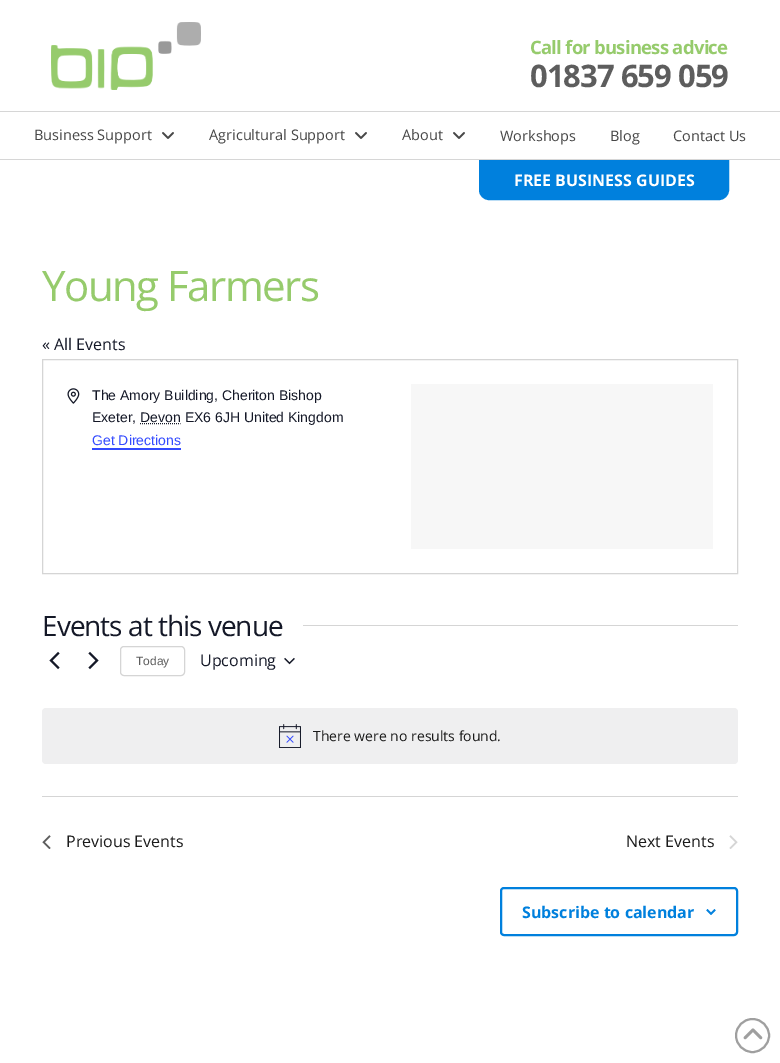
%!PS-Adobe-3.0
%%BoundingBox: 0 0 780 1063
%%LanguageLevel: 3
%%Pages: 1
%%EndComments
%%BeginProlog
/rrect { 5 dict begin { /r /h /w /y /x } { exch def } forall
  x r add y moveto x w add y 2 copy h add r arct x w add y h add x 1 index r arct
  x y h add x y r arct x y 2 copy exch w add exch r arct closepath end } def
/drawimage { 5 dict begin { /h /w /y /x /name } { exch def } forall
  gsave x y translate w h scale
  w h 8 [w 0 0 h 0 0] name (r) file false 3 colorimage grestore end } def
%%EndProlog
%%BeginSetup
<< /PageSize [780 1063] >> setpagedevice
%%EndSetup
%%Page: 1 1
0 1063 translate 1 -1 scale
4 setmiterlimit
1 setgray
0 0 780 1063 rectfill
0.839 setgray
0 111 780 1 rectfill
(images/1.raw) 51 22 150 68 drawimage
0 159 780 1 rectfill
(images/2.raw) 162 132 12 7 drawimage
(images/2.raw) 355 132 12 7 drawimage
(images/2.raw) 453 132 12 7 drawimage
0 0.502 0.867 setrgbcolor
newpath 480 161 moveto 728 161 lineto 728 190 lineto 728 195 724 199 719 199 curveto 489 199 lineto 484 199 480 195 480 190 curveto closepath gsave fill grestore
2 setlinewidth
stroke
0.835 setgray
1 setlinewidth
42.5 359.5 695 214 rectstroke
(images/3.raw) 67 388 13 16 drawimage
0.078 0.094 0.153 setrgbcolor
[1 1] 0 setdash
newpath 140 423.5 moveto 180.5 423.5 lineto stroke
0.2 0.29 1 setrgbcolor
92 448 89 2 rectfill
0.969 setgray
411 384 302 165 rectfill
0.835 setgray
303 625 435 1 rectfill
(images/4.raw) 49 651 11 19 drawimage
(images/5.raw) 88 651 11 19 drawimage
[] 0 setdash
120.5 646.5 64 29 3.5 rrect stroke
(images/6.raw) 284 657 11 8 drawimage
0.937 0.937 0.941 setrgbcolor
42 708 696 56 4 rrect fill
(images/7.raw) 279 724 22 24 drawimage
0.835 setgray
42 796 696 1 rectfill
(images/8.raw) 42 835 9 14 drawimage
(images/9.raw) 729 835 9 14 drawimage
0 0.502 0.867 setrgbcolor
2 setlinewidth
501 888 236 47 3 rrect stroke
(images/10.raw) 706 909 10 6 drawimage
0.624 setgray
newpath 752.5 1035.5 16.5 0 360 arc closepath stroke
(images/11.raw) 743 1028 20 12 drawimage
/OpenSans-Bold [18.5 0 0 -18.5 0 0] selectfont
0.588 0.796 0.424 setrgbcolor
530 54 moveto -0.75 0 (Call for business advice) ashow
/OpenSans-Bold [31 0 0 -31 0 0] selectfont
0.365 setgray
530 87 moveto -1 0 (01837 659 059) ashow
/OpenSans-Regular [14.5 0 0 -14.5 0 0] selectfont
0.278 setgray
34 140 moveto (Business Support) show
209 140 moveto (Agricultural Support) show
402 140 moveto (About) show
500 141 moveto (Workshops) show
610 141 moveto (Blog) show
673 141 moveto (Contact Us) show
/OpenSans-Bold [16 0 0 -16 0 0] selectfont
1 setgray
514 186 moveto (FREE BUSINESS GUIDES) show
/OpenSans-Regular [42 0 0 -42 0 0] selectfont
0.588 0.796 0.424 setrgbcolor
42 301 moveto -1.5 0 (Young Farmers) ashow
/OpenSans-Regular [16 0 0 -16 0 0] selectfont
0.078 0.094 0.153 setrgbcolor
42 350 moveto (« All Events) show
/LiberationSans-Regular [14 0 0 -14 0 0] selectfont
92 400 moveto (The Amory Building, Cheriton Bishop) show
92 422 moveto (Exeter, Devon EX6 6JH United Kingdom) show
0.2 0.29 1 setrgbcolor
92 445 moveto (Get Directions) show
/OpenSans-Regular [28 0 0 -28 0 0] selectfont
0.078 0.094 0.153 setrgbcolor
42 636 moveto -1 0 (Events at this venue) ashow
/LiberationSans-Regular [12 0 0 -12 0 0] selectfont
0.365 setgray
136 665 moveto (Today) show
/OpenSans-Regular [16 0 0 -16 0 0] selectfont
0.078 0.094 0.153 setrgbcolor
200 666 moveto (Upcoming) show
/OpenSans-Regular [14 0 0 -14 0 0] selectfont
0.102 setgray
313 741 moveto (There were no results found.) show
/OpenSans-Regular [16 0 0 -16 0 0] selectfont
66 847 moveto (Previous Events) show
626 847 moveto (Next Events) show
/OpenSans-Bold [16 0 0 -16 0 0] selectfont
0 0.502 0.867 setrgbcolor
522 918 moveto (Subscribe to calendar) show
showpage
%%EOF
